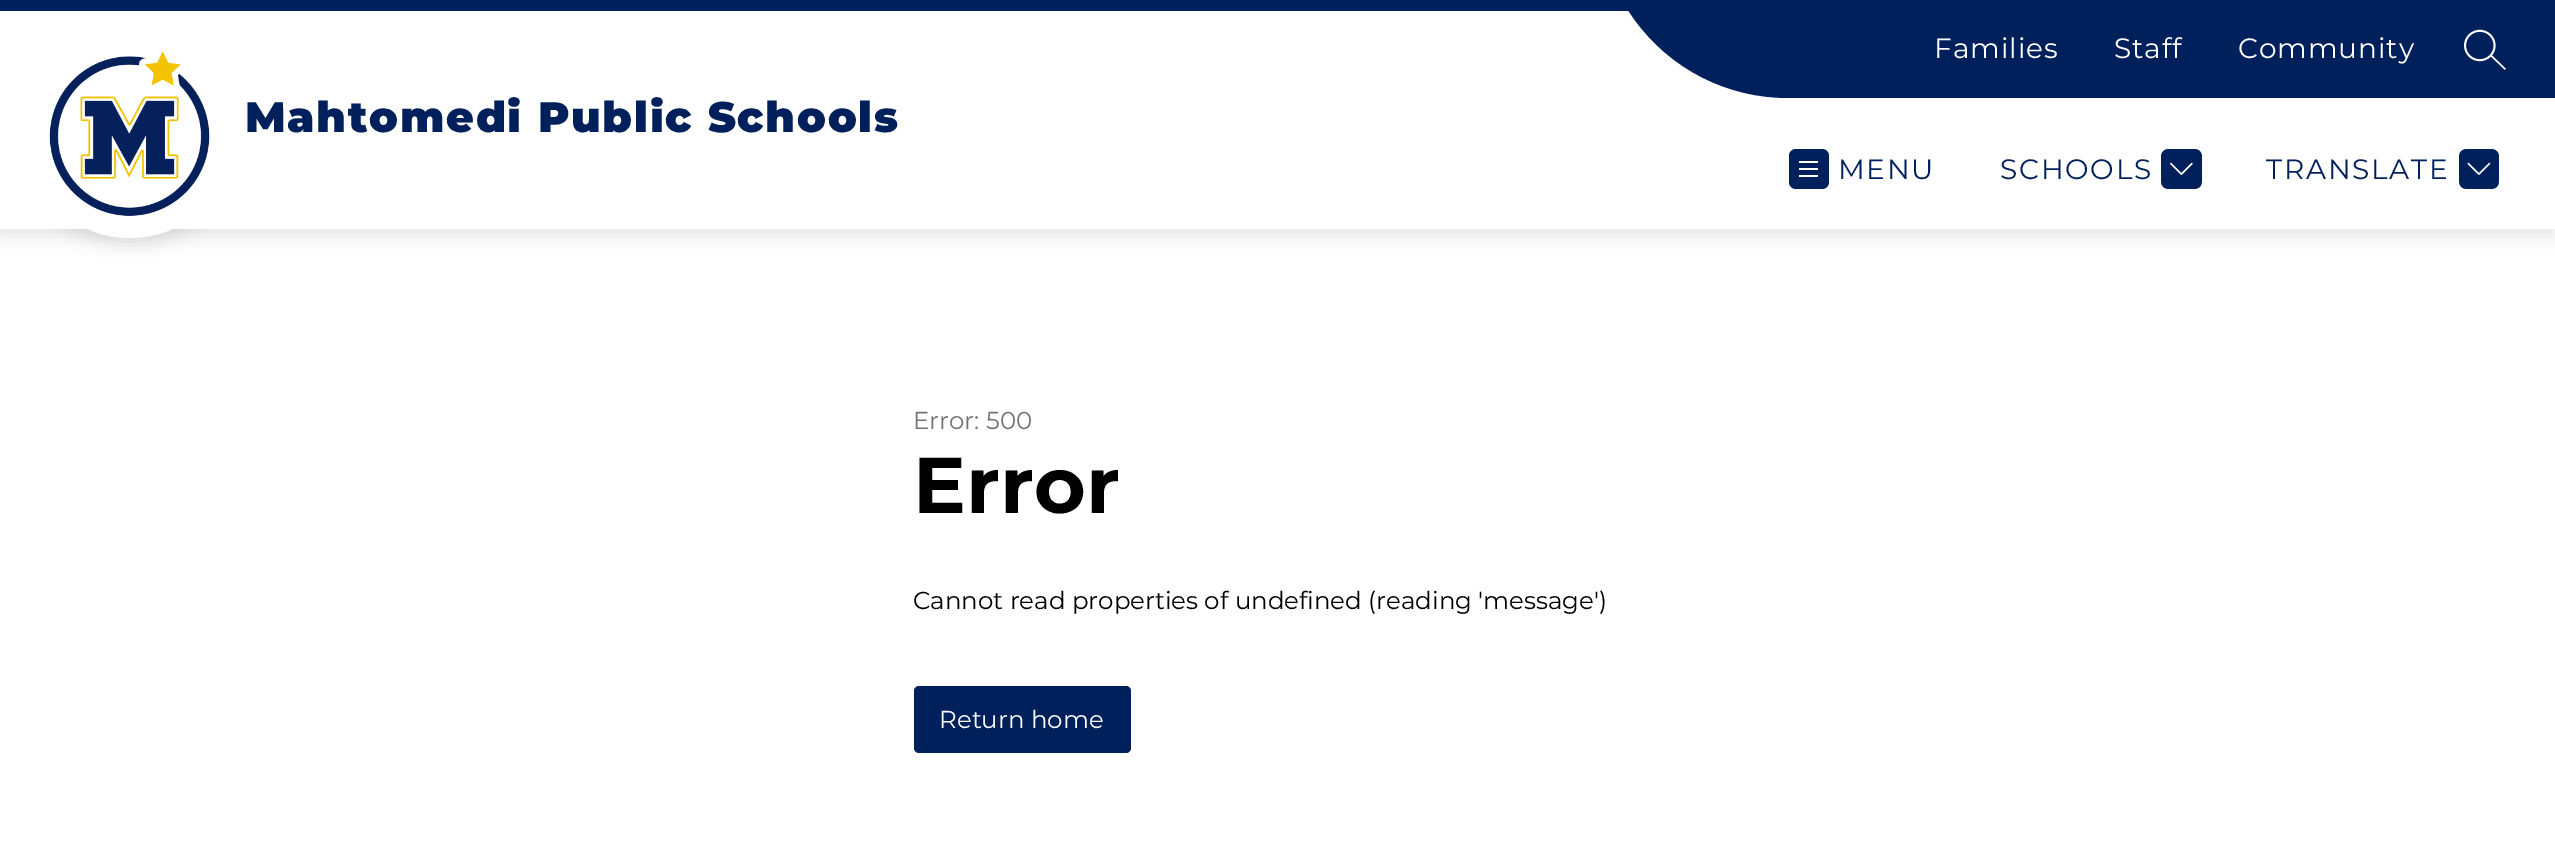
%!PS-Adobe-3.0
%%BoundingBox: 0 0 2555 863
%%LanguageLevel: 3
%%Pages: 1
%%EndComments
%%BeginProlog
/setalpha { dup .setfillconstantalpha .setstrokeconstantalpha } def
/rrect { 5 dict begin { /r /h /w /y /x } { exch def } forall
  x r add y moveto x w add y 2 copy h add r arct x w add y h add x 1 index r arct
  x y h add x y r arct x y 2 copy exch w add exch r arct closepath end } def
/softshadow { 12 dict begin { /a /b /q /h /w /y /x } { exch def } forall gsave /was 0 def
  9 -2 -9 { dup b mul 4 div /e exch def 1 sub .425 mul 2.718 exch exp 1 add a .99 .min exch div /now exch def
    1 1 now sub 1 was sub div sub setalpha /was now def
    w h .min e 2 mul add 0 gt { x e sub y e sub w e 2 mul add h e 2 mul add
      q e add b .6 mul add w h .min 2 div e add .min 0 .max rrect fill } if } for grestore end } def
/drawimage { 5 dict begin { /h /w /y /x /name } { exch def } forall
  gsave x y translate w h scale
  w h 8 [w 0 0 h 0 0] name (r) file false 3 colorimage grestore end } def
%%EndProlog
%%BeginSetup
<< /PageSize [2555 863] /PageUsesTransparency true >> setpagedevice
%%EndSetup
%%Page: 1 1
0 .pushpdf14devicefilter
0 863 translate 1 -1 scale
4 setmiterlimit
1 setgray
0 0 2555 863 rectfill
0 setgray
0 7 2555 229 0 9 0.1 softshadow
25 35 210 210 105 9 0.1 softshadow
1 setgray
newpath 130 133 105 0 360 arc closepath fill
0 11 2555 218 rectfill
0 0.125 0.361 setrgbcolor
0 0 1629 11 rectfill
(images/1.raw) 49 51 161 165 drawimage
1792 0 763 98 rectfill
newpath 1788 98 moveto 1792 98 lineto 1792 0 lineto 1624 0 lineto 1623 0 1622 2 1623 3 curveto 1634 19 lineto 1670 69 1727 98 1788 98 curveto closepath fill
(images/2.raw) 2464 29 42 41 drawimage
1789 149 40 40 7 rrect fill
1 setgray
newpath 1799 161 moveto 1818 161 lineto 1818 163 lineto 1799 163 lineto closepath 1799 168 moveto 1818 168 lineto 1818 170 lineto 1799 170 lineto closepath 1818 175 moveto 1799 175 lineto 1799 177 lineto 1818 177 lineto closepath eofill
(images/3.raw) 2161 149 41 40 drawimage
(images/4.raw) 2459 149 40 40 drawimage
0 0.125 0.361 setrgbcolor
914 686 217 67 5 rrect fill
/Montserrat-Black [42.6 0 0 -42.6 0 0] selectfont
245 132 moveto 1.75 0 (Mahtomedi Public Schools) ashow
/Montserrat-Regular [28 0 0 -28 0 0] selectfont
1 setgray
1934 58 moveto 0.9 0 (Families) ashow
2114 58 moveto 0.9 0 (Staff) ashow
2238 58 moveto 0.9 0 (Community) ashow
0 0.125 0.361 setrgbcolor
1838 179 moveto 1.75 0 (MENU) ashow
2000 179 moveto 1.75 0 (SCHOOLS) ashow
2266 179 moveto 1.75 0 (TRANSLATE) ashow
/Montserrat-Regular [24.5 0 0 -24.5 0 0] selectfont
0.455 setgray
913 429 moveto (Error: 500) show
/Montserrat-Bold [79 0 0 -79 0 0] selectfont
0 setgray
913 513 moveto (Error) show
/Montserrat-Regular [24.5 0 0 -24.5 0 0] selectfont
913 609 moveto (Cannot read properties of undefined \(reading 'message'\)) show
1 setgray
939 728 moveto (Return home) show
.poppdf14devicefilter showpage
%%EOF
